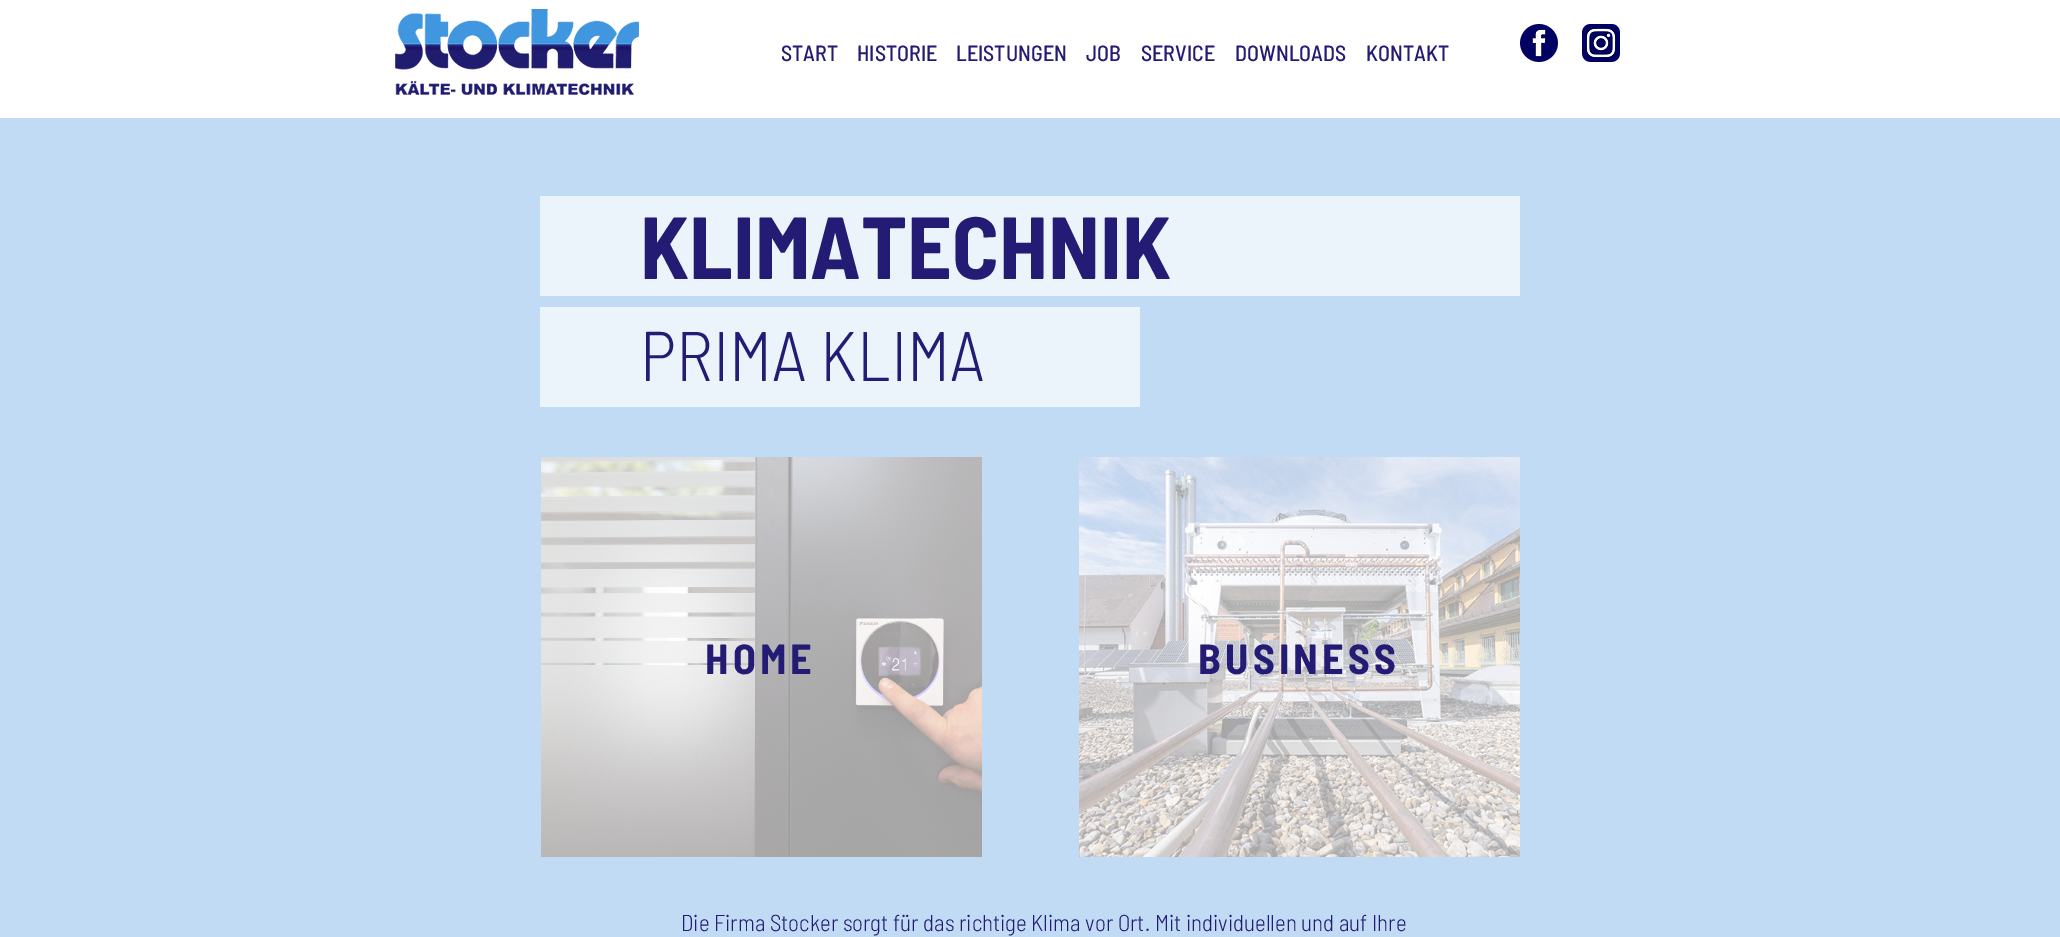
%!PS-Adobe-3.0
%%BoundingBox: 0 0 2060 937
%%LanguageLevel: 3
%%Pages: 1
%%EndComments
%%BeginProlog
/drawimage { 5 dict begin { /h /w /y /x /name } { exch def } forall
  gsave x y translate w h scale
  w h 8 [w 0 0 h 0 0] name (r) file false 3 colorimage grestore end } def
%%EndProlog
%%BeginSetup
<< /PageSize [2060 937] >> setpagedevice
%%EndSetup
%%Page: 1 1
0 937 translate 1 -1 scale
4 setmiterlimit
1 setgray
0 0 2060 937 rectfill
(images/1.raw) 395 9 244 86 drawimage
(images/2.raw) 1520 24 38 38 drawimage
(images/3.raw) 1582 24 38 38 drawimage
0.753 0.859 0.953 setrgbcolor
0 118 2060 819 rectfill
0.925 0.957 0.984 setrgbcolor
540 196 980 100 rectfill
540 307 600 100 rectfill
(images/4.raw) 541 457 441 400 drawimage
(images/5.raw) 1079 457 441 400 drawimage
/BarlowSemiCondensed-Medium [22 0 0 -22 0 0] selectfont
0.141 0.11 0.455 setrgbcolor
781 61 moveto (START) show
857 61 moveto (HISTORIE) show
956 61 moveto (LEISTUNGEN) show
1086 61 moveto (JOB) show
1141 61 moveto (SERVICE) show
1235 61 moveto (DOWNLOADS) show
1366 61 moveto (KONTAKT) show
/BarlowSemiCondensed-Bold [88 0 0 -88 0 0] selectfont
640 279 moveto (KLIMATECHNIK) show
/BarlowSemiCondensed-Light [70 0 0 -70 0 0] selectfont
640 381 moveto (PRIMA KLIMA) show
/BarlowSemiCondensed-Bold [42 0 0 -42 0 0] selectfont
705 674 moveto 4.25 0 (HOME) ashow
1198 674 moveto 4.25 0 (BUSINESS) ashow
/BarlowSemiCondensed-Light [23 0 0 -23 0 0] selectfont
681 931 moveto (Die Firma Stocker sorgt für das richtige Klima vor Ort. Mit individuellen und auf Ihre) show
showpage
%%EOF
